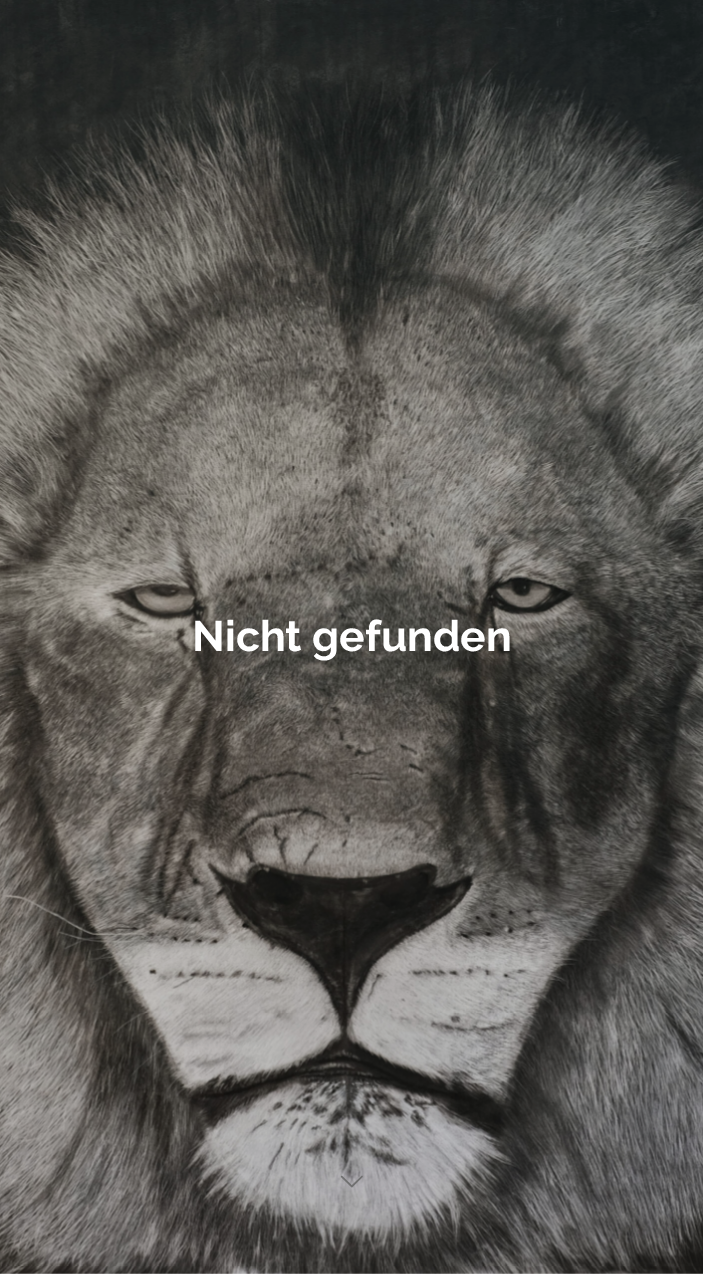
%!PS-Adobe-3.0
%%BoundingBox: 0 0 703 1274
%%LanguageLevel: 3
%%Pages: 1
%%EndComments
%%BeginProlog
/setalpha { dup .setfillconstantalpha .setstrokeconstantalpha } def
/drawimage { 5 dict begin { /h /w /y /x /name } { exch def } forall
  gsave x y translate w h scale
  w h 8 [w 0 0 h 0 0] name (r) file false 3 colorimage grestore end } def
%%EndProlog
%%BeginSetup
<< /PageSize [703 1274] /PageUsesTransparency true >> setpagedevice
%%EndSetup
%%Page: 1 1
0 .pushpdf14devicefilter
0 1274 translate 1 -1 scale
4 setmiterlimit
1 setgray
0 0 703 1274 rectfill
(images/1.raw) 0 0 703 1274 drawimage
0.1 setalpha
gsave newpath 0 0 moveto 703 0 lineto 703 1274 lineto 0 1274 lineto closepath clip newpath
<< /ShadingType 2 /ColorSpace /DeviceRGB /Coords [351 0 352 1274] /Extend [true true] /Function << /FunctionType 2 /Domain [0 1] /C0 [0.031 0.255 0.361] /C1 [0.11 0.067 0.039] /N 1 >> >> shfill grestore
1 setalpha
(images/2.raw) 340 1175 23 13 drawimage
/Raleway-Bold [42.75 0 0 -42.75 0 0] selectfont
192 651 moveto (Nicht gefunden) show
.poppdf14devicefilter showpage
%%EOF
